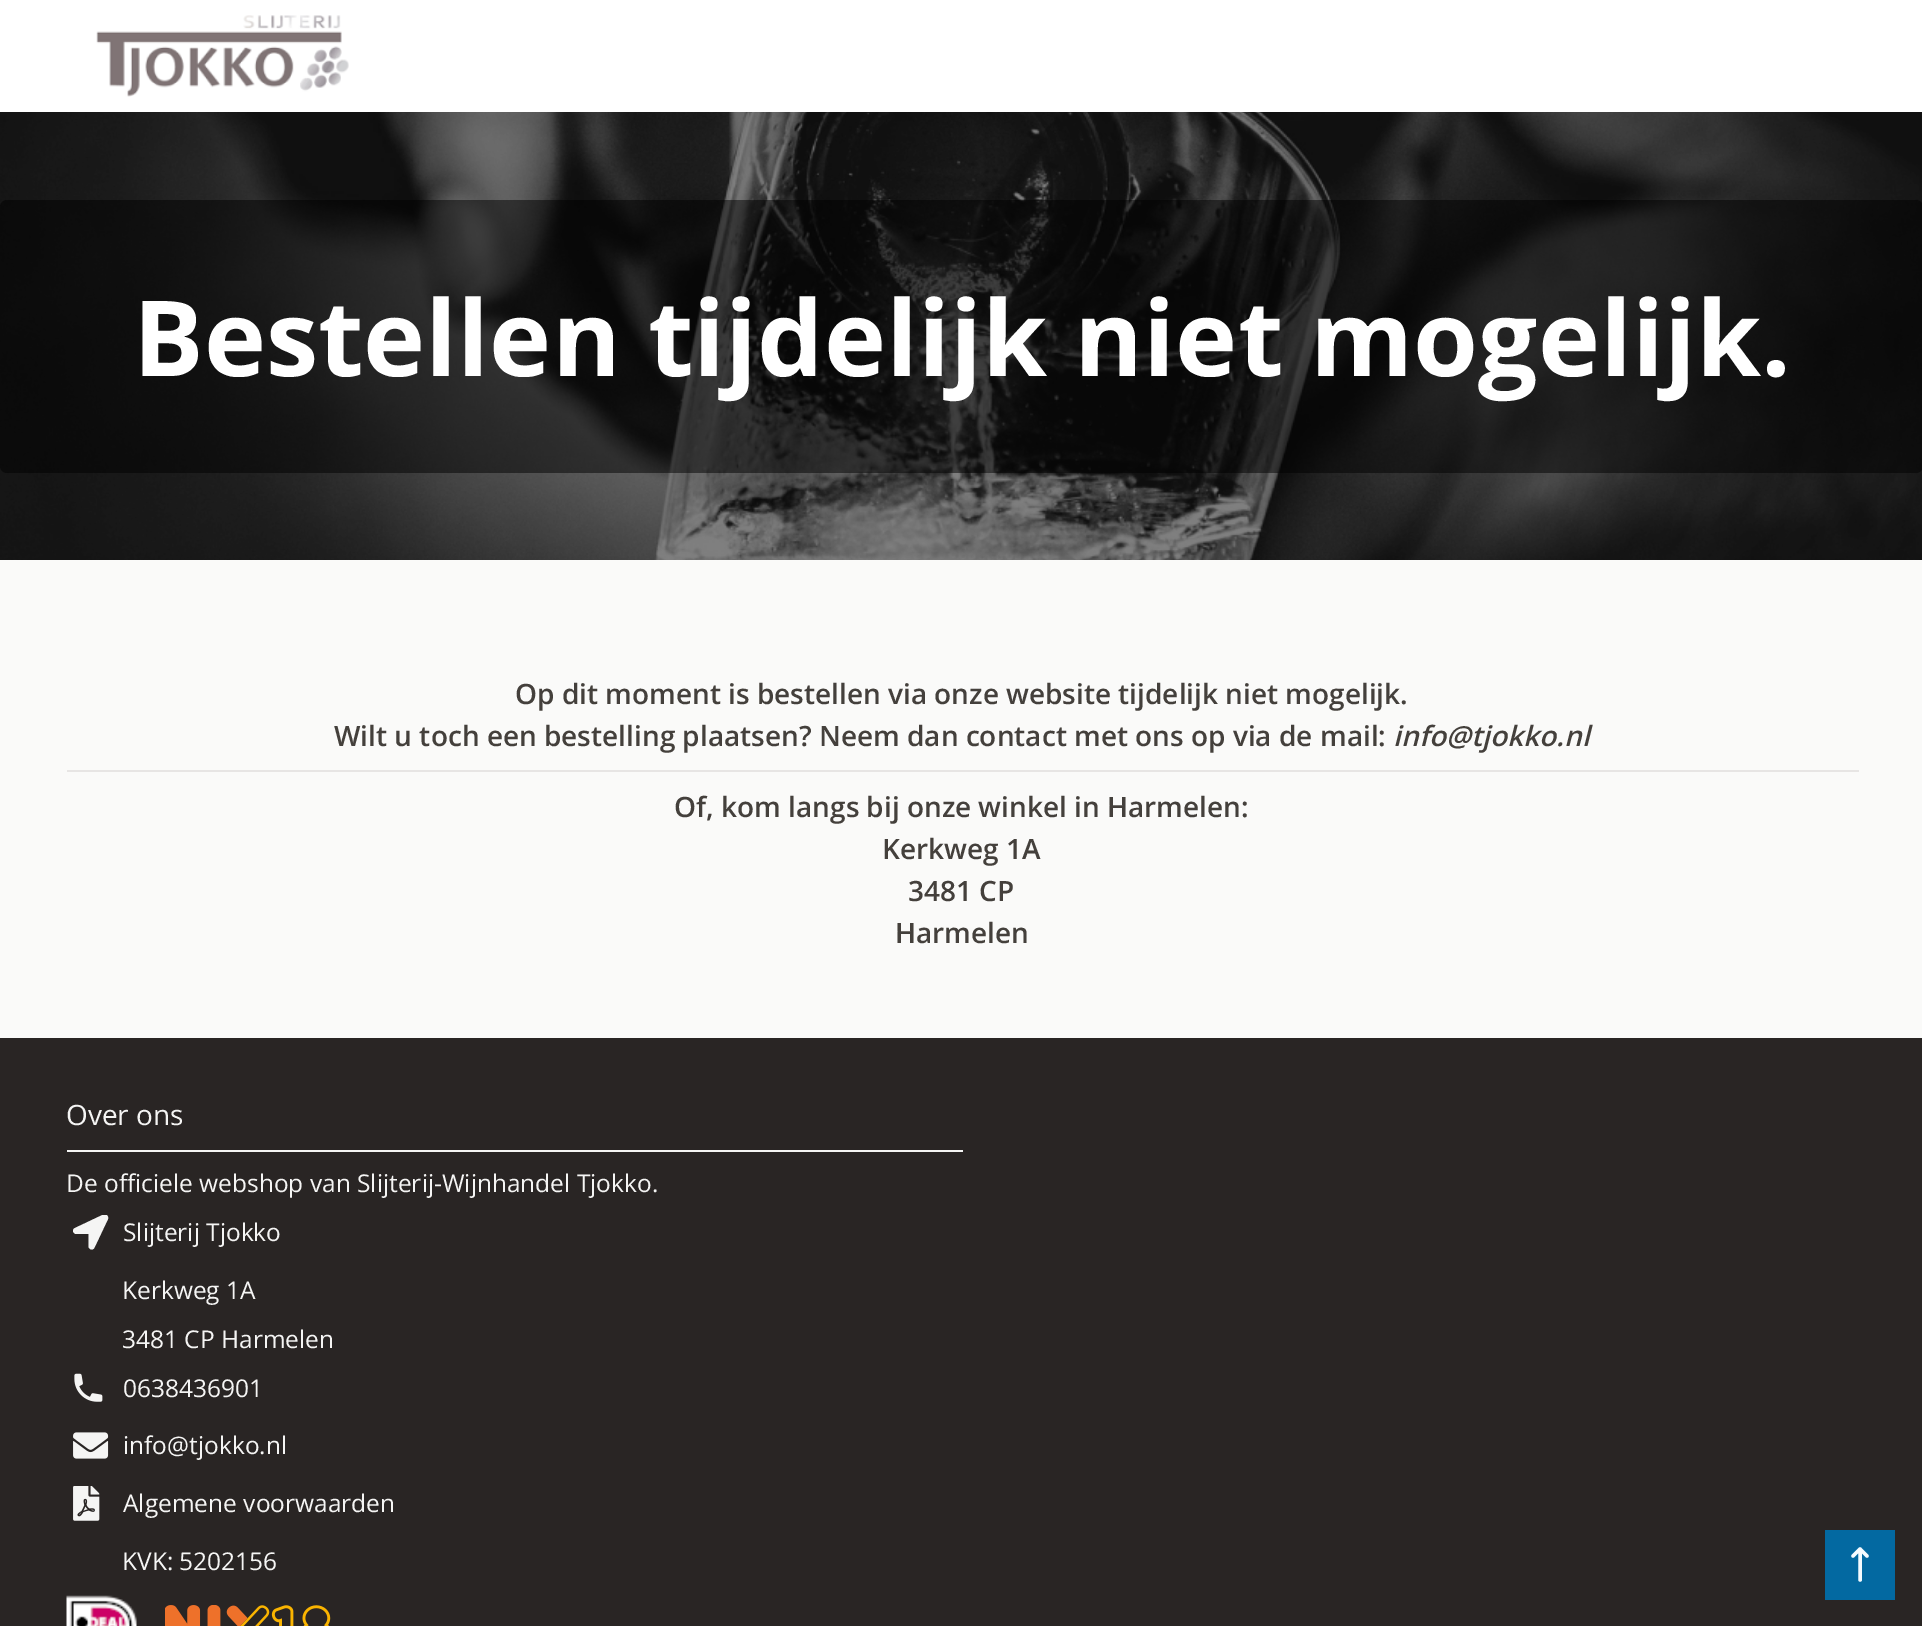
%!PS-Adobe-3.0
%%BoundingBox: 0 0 1922 1626
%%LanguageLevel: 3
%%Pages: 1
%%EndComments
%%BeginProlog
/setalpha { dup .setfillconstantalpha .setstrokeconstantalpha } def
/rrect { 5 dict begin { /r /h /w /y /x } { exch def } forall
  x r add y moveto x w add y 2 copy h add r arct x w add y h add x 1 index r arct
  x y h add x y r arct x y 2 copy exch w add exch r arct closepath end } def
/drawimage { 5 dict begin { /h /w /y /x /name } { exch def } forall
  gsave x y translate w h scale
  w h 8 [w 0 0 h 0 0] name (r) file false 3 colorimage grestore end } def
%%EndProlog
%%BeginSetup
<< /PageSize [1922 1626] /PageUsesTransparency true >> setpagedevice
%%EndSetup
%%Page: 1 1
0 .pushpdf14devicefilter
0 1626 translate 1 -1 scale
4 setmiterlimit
0.98 0.98 0.976 setrgbcolor
0 0 1922 1626 rectfill
1 setgray
0 0 1922 112 rectfill
(images/1.raw) 96 15 253 82 drawimage
(images/2.raw) 0 112 1922 448 drawimage
0.5 setalpha
0 setgray
0 200 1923 273 7 rrect fill
1 setalpha
0.906 0.898 0.894 setrgbcolor
67 770 1792 2 rectfill
0.161 0.145 0.141 setrgbcolor
0 1038 1922 588 rectfill
0.961 0.961 0.957 setrgbcolor
67 1150 896 2 rectfill
gsave
67 1215 43 35 rectclip
newpath 103.5 1214.5 moveto 75 1228 lineto 71.5 1229.5 73 1234 76.5 1234 curveto 88.5 1234 lineto 88.5 1246 lineto 88.5 1249.5 93 1251 94.5 1247.5 curveto 108 1219 lineto 109 1216.5 106 1213.5 103.5 1214.5 curveto closepath fill
grestore
(images/3.raw) 74 1373 29 29 drawimage
(images/4.raw) 73 1432 36 27 drawimage
(images/5.raw) 73 1486 27 35 drawimage
(images/6.raw) 66 1595 71 31 drawimage
(images/7.raw) 165 1605 166 21 drawimage
0.012 0.412 0.631 setrgbcolor
1825 1530 70 70 rectfill
0.961 0.984 1 setrgbcolor
3.5 setlinewidth
1 setlinecap
1 setlinejoin
newpath 1853 1556 moveto 1860 1549 lineto 1860 1549 moveto 1867 1556 lineto 1860 1549 moveto 1860 1580 lineto stroke
/OpenSans-Bold [105 0 0 -105 0 0] selectfont
1 setgray
133 376 moveto (Bestellen tijdelijk niet mogelijk.) show
/OpenSans-SemiBold [28 0 0 -28 0 0] selectfont
0.267 0.251 0.235 setrgbcolor
515 704 moveto (Op dit moment is bestellen via onze website tijdelijk niet mogelijk.) show
334 746 moveto (Wilt u toch een bestelling plaatsen? Neem dan contact met ons op via de mail:) show
/OpenSans-SemiBoldItalic [28 0 0 -28 0 0] selectfont
1393 746 moveto (info@tjokko.nl) show
/OpenSans-SemiBold [28 0 0 -28 0 0] selectfont
674 817 moveto (Of, kom langs bij onze winkel in Harmelen:) show
882 859 moveto (Kerkweg 1A) show
908 901 moveto (3481 CP) show
895 943 moveto (Harmelen) show
/OpenSans-Regular [28 0 0 -28 0 0] selectfont
0.961 0.961 0.957 setrgbcolor
66 1125 moveto (Over ons) show
/OpenSans-Regular [24.5 0 0 -24.5 0 0] selectfont
66 1192 moveto (De officiele webshop van Slijterij-Wijnhandel Tjokko.) show
123 1241 moveto (Slijterij Tjokko) show
122 1299 moveto (Kerkweg 1A) show
122 1348 moveto (3481 CP Harmelen) show
123 1397 moveto (0638436901) show
123 1454 moveto (info@tjokko.nl) show
123 1512 moveto (Algemene voorwaarden) show
122 1570 moveto (KVK: 5202156) show
.poppdf14devicefilter showpage
%%EOF
